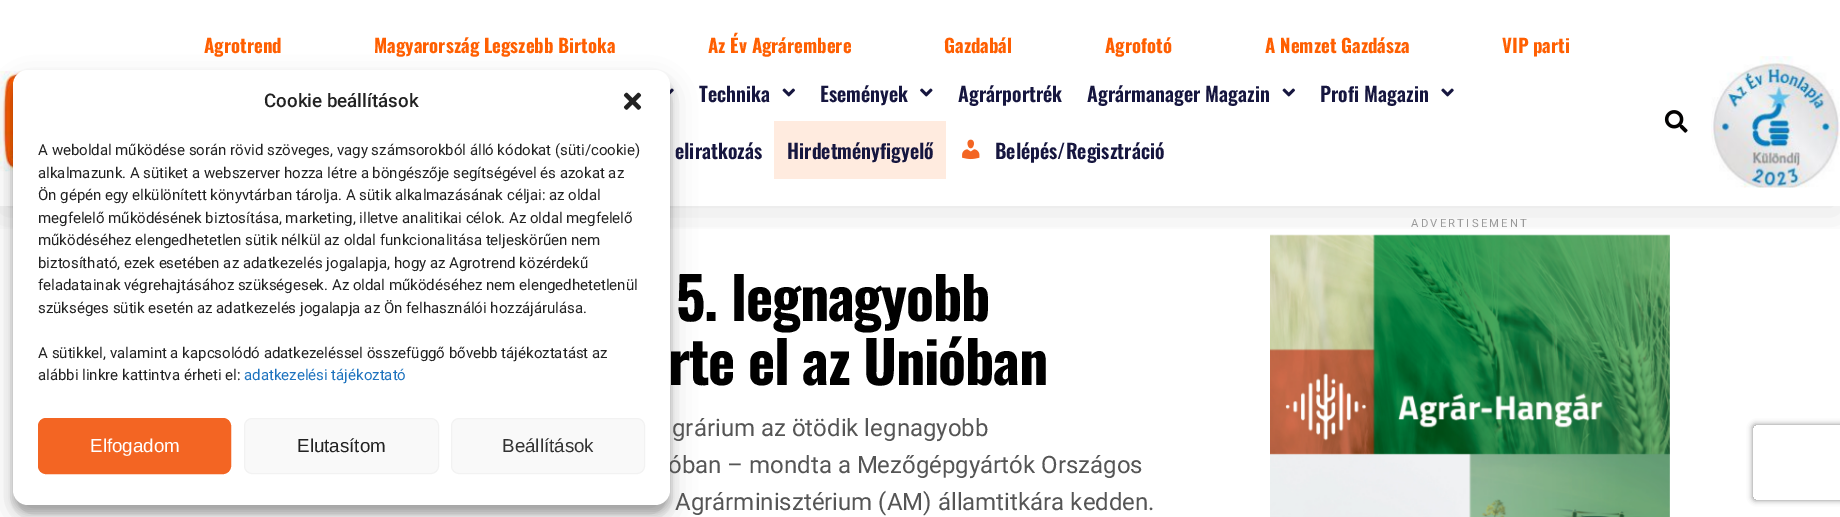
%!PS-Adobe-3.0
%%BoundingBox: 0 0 1840 517
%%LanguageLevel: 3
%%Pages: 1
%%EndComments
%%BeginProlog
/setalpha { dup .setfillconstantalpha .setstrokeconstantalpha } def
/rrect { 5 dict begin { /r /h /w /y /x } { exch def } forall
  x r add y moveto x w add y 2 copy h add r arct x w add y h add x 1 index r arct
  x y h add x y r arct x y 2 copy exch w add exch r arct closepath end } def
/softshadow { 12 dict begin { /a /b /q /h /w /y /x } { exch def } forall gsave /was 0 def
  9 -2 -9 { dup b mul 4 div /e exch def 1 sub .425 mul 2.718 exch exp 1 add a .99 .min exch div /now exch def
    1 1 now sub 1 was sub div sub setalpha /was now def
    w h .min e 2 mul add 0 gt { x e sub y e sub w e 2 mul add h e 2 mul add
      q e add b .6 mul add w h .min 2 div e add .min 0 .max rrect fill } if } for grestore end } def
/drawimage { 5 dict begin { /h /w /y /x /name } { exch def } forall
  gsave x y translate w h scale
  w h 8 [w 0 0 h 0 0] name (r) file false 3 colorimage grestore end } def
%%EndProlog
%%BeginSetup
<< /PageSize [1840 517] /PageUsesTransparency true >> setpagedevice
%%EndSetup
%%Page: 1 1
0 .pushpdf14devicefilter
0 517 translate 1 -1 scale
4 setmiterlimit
1 setgray
0 0 1840 517 rectfill
(images/10.raw) 1270 234 400 283 drawimage
gsave
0 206 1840 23 rectclip
0 setgray
0 6 1840 207 0 19 0.1 softshadow
grestore
(images/1.raw) 0 71 23 101 drawimage
(images/2.raw) 670 88 4 7 drawimage
(images/3.raw) 782 88 13 9 drawimage
(images/4.raw) 920 88 13 9 drawimage
(images/3.raw) 1282 88 13 9 drawimage
(images/5.raw) 1441 88 13 9 drawimage
1 0.922 0.875 setrgbcolor
774 121 172 58 rectfill
(images/6.raw) 962 139 18 21 drawimage
(images/7.raw) 1664 110 24 23 drawimage
(images/8.raw) 1711 56 129 132 drawimage
0 setgray
13 78 657 435 15 4 0.23 softshadow
13 83 657 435 15 12.5 0.19 softshadow
gsave
newpath 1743 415 moveto 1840 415 lineto 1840 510 lineto 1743 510 lineto closepath 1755.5 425 moveto 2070.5 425 lineto 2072 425 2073 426 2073 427.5 curveto 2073 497.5 lineto 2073 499 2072 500 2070.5 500 curveto 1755.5 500 lineto 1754 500 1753 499 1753 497.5 curveto 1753 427.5 lineto 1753 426 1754 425 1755.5 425 curveto closepath eoclip newpath
0.502 setgray
1753 425 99 75 2.5 3 1 softshadow
grestore
/Oswald-Bold [18.75 0 0 -18.75 0 0] selectfont
1 0.373 0.004 setrgbcolor
204 53 moveto (Agrotrend) show
374 53 moveto (Magyarország Legszebb Birtoka) show
708 53 moveto (Az Év Agrárembere) show
944 53 moveto (Gazdabál) show
1105 53 moveto (Agrofotó) show
1265 53 moveto (A Nemzet Gazdásza) show
1502 53 moveto (VIP parti) show
/Oswald-SemiBold [20 0 0 -20 0 0] selectfont
0.086 0.086 0.247 setrgbcolor
699 102 moveto (Technika) show
820 102 moveto (Események) show
958 102 moveto (Agrárportrék) show
1087 102 moveto (Agrármanager Magazin) show
1320 102 moveto (Profi Magazin) show
675 159 moveto (eliratkozás) show
787 159 moveto (Hirdetményfigyelő) show
995 159 moveto (Belépés/Regisztráció) show
/Roboto-Regular [11.25 0 0 -11.25 0 0] selectfont
0.6 setgray
1411 227 moveto 2.25 0 (ADVERTISEMENT) ashow
/Oswald-Bold [58 0 0 -58 0 0] selectfont
0 setgray
676 321 moveto -1.2 0 (5. legnagyobb) ashow
668 385 moveto -1.2 0 (rte el az Unióban) ashow
/Roboto-Regular [24 0 0 -24 0 0] selectfont
0.333 setgray
672 436 moveto (grárium az ötödik legnagyobb) show
668 473 moveto (óban – mondta a Mezőgépgyártók Országos) show
1 setgray
13 70 657 435 15 rrect fill
/Roboto-Regular [15 0 0 -15 0 0] selectfont
0.118 0.451 0.745 setrgbcolor
244 380 moveto (adatkezelési tájékoztató) show
0.133 setgray
38 380 moveto (alábbi linkre kattintva érheti el:) show
38 358 moveto (A sütikkel, valamint a kapcsolódó adatkezeléssel összefüggő bővebb tájékoztatást az) show
38 313 moveto (szükséges sütik esetén az adatkezelés jogalapja az Ön felhasználói hozzájárulása.) show
38 290 moveto (feladatainak végrehajtásához szükségesek. Az oldal működéséhez nem elengedhetetlenül) show
38 268 moveto (biztosítható, ezek esetében az adatkezelés jogalapja, hogy az Agrotrend közérdekű) show
38 245 moveto (működéséhez elengedhetetlen sütik nélkül az oldal funkcionalitása teljeskörűen nem) show
38 223 moveto (megfelelő működésének biztosítása, marketing, illetve analitikai célok. Az oldal megfelelő) show
38 200 moveto (Ön gépén egy elkülönített könyvtárban tárolja. A sütik alkalmazásának céljai: az oldal) show
38 178 moveto (alkalmazunk. A sütiket a webszerver hozza létre a böngészője segítségével és azokat az) show
38 155 moveto (A weboldal működése során rövid szöveges, vagy számsorokból álló kódokat \(süti/cookie\)) show
(images/9.raw) 623 92 19 18 drawimage
0.976 setgray
451.5 418.5 193 55 7.5 rrect gsave fill grestore
0.949 setgray
stroke
/LiberationSans-Regular [18.75 0 0 -18.75 0 0] selectfont
0.2 setgray
502 452 moveto (Beállítások) show
0.976 setgray
244.5 418.5 194 55 7.5 rrect gsave fill grestore
0.949 setgray
stroke
0.133 setgray
297 452 moveto (Elutasítom) show
0.953 0.396 0.137 setrgbcolor
38.5 418.5 192 55 7.5 rrect gsave fill grestore
stroke
1 setgray
90 452 moveto (Elfogadom) show
/Roboto-Medium [18.75 0 0 -18.75 0 0] selectfont
0.133 setgray
264 107 moveto (Cookie beállítások) show
/Roboto-Regular [24 0 0 -24 0 0] selectfont
0.333 setgray
675 510 moveto (Agrárminisztérium \(AM\) államtitkára kedden.) show
.poppdf14devicefilter showpage
%%EOF
